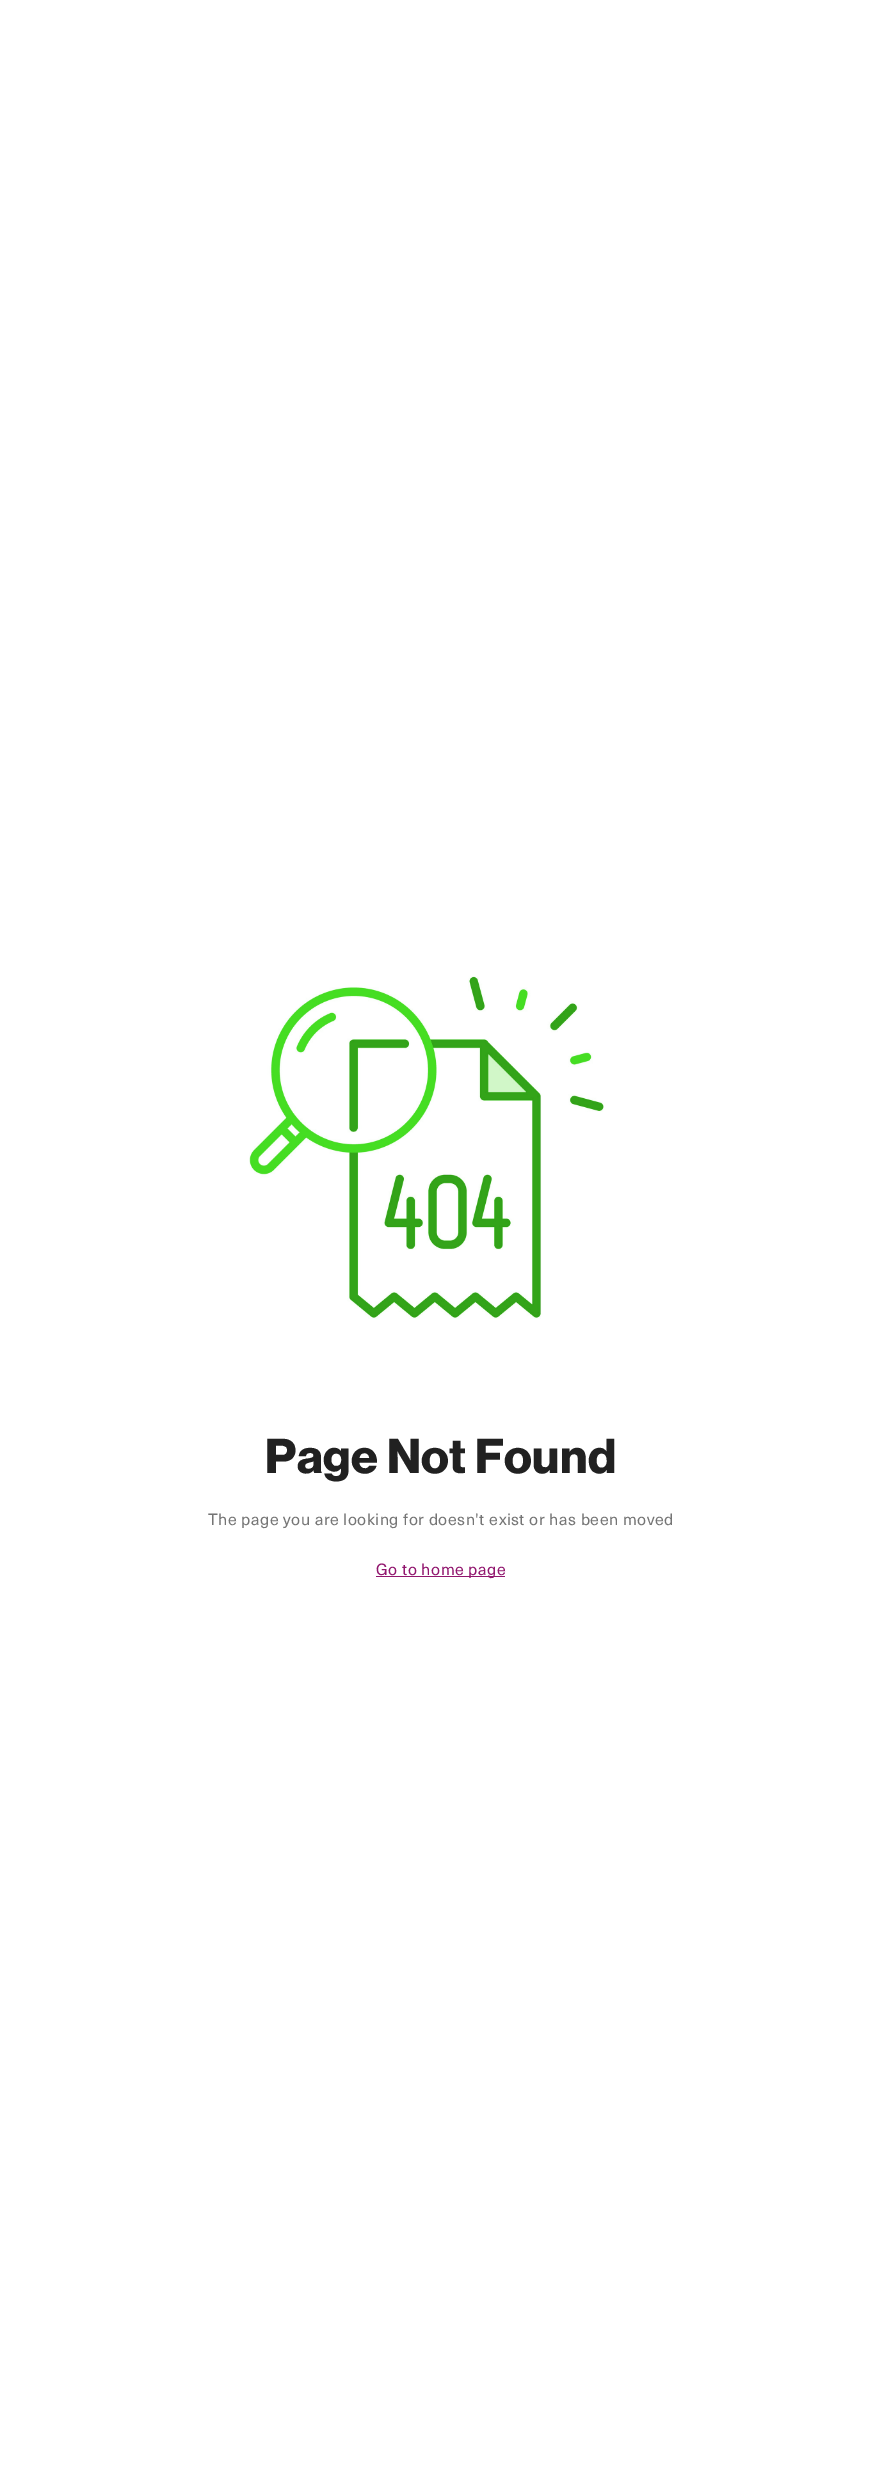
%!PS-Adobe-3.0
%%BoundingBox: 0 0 881 2475
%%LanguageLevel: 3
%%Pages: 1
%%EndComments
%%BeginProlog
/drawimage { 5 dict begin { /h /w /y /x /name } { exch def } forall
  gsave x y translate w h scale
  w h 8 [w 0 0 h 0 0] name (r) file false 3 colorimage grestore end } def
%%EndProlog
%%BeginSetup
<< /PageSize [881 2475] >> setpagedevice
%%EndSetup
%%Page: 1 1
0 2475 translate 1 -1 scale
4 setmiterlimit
1 setgray
0 0 881 2475 rectfill
(images/1.raw) 249 976 355 343 drawimage
0.569 0.086 0.431 setrgbcolor
376 1576 129 1 rectfill
/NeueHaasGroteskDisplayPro-Bold [48 0 0 -48 0 0] selectfont
0.129 setgray
265 1473 moveto 0.5 0 (Page Not Found) ashow
/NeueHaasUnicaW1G-Regular [16 0 0 -16 0 0] selectfont
0.459 setgray
208 1525 moveto 0.5 0 (The page you are looking for doesn't exist or has been moved) ashow
0.569 0.086 0.431 setrgbcolor
376 1575 moveto 0.5 0 (Go to home page) ashow
showpage
%%EOF
